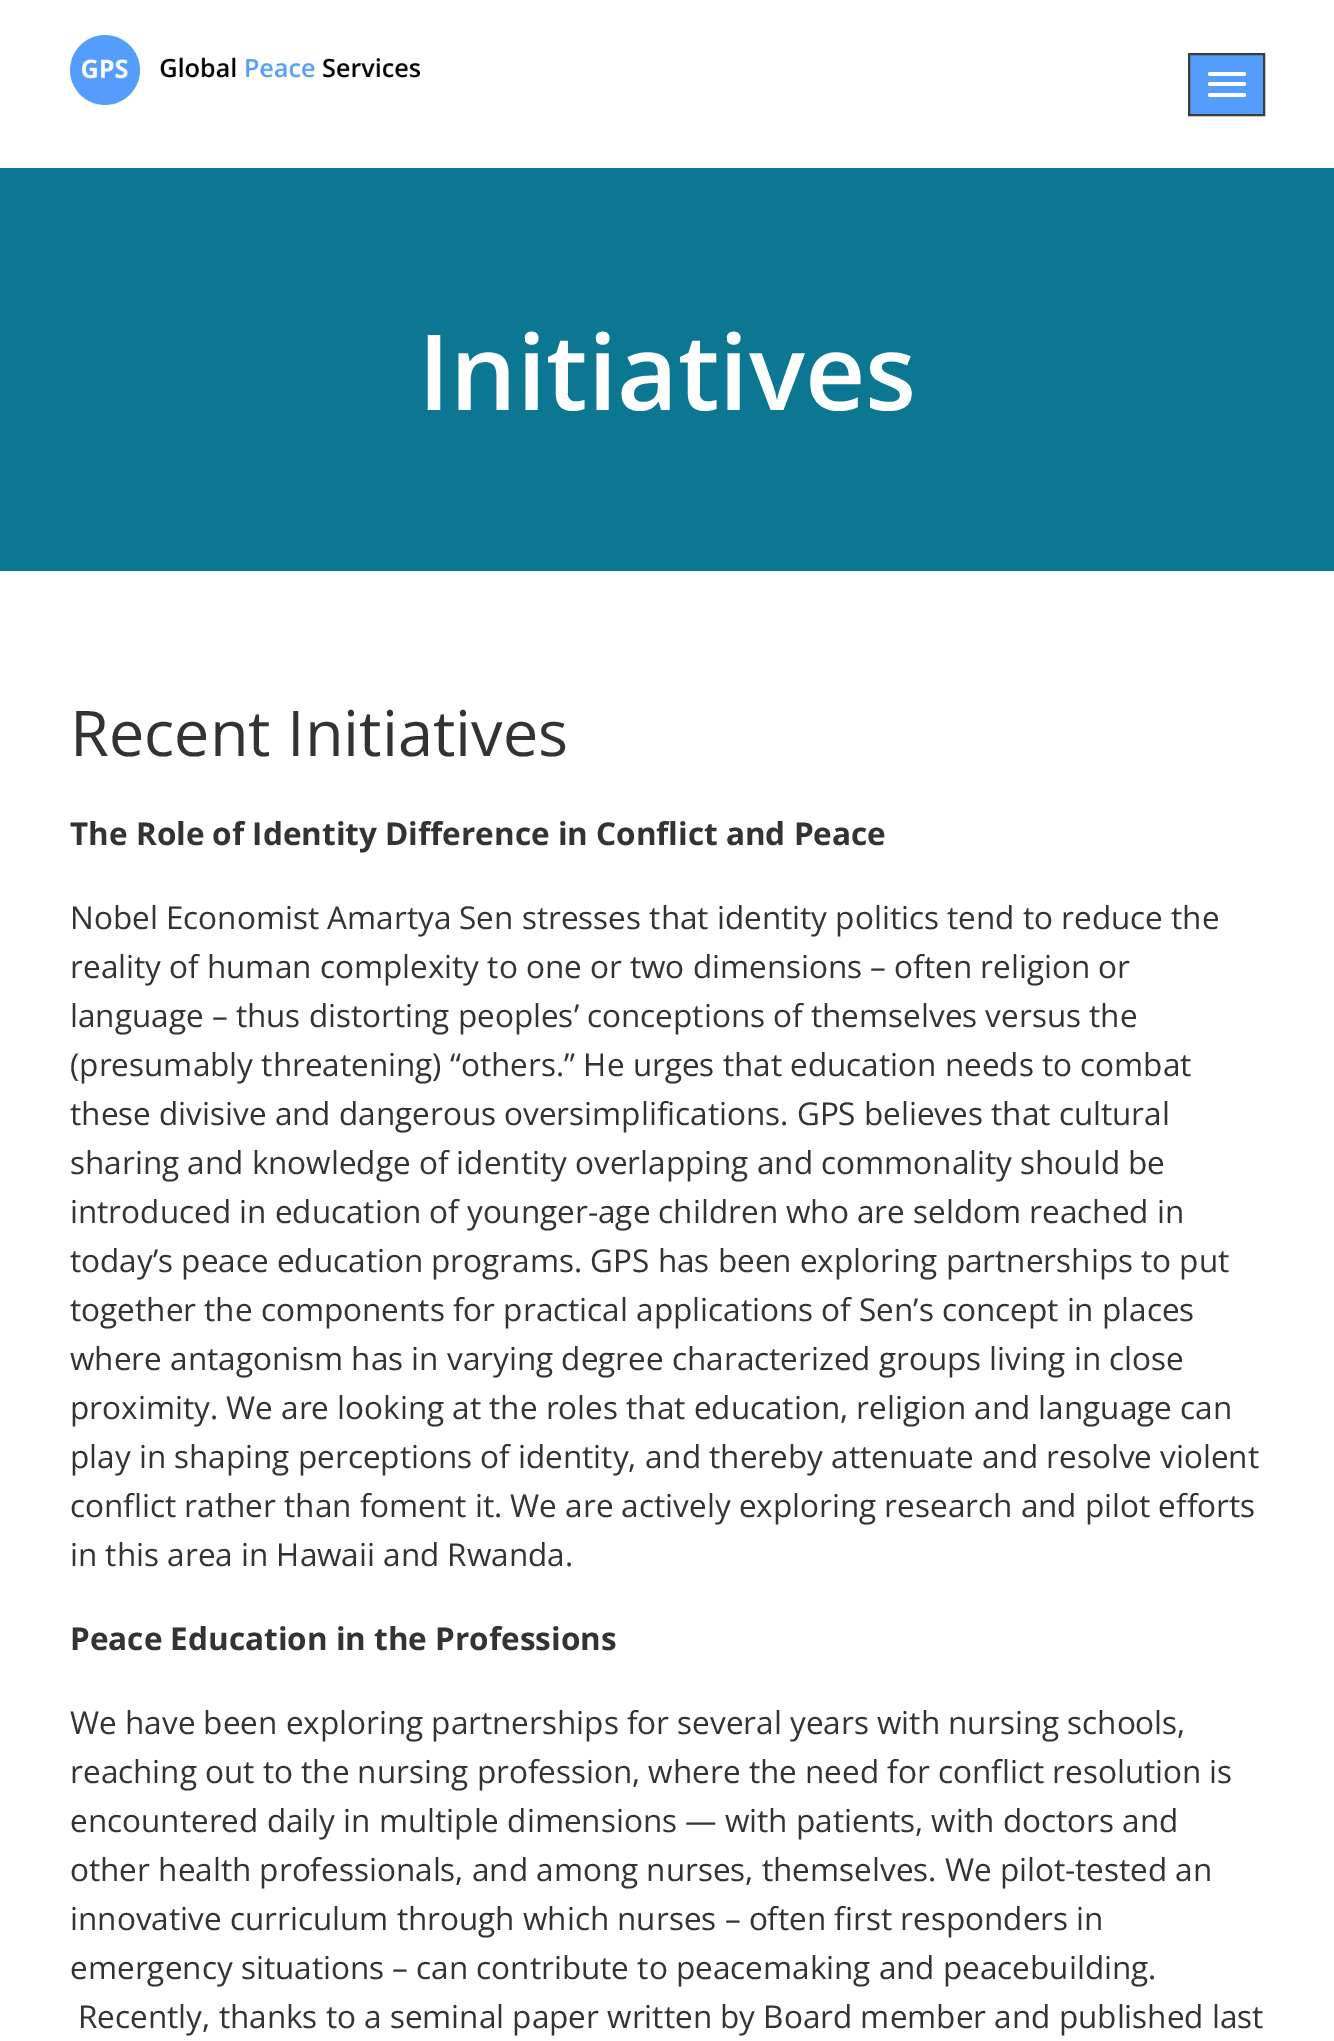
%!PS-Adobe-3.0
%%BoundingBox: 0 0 1334 2041
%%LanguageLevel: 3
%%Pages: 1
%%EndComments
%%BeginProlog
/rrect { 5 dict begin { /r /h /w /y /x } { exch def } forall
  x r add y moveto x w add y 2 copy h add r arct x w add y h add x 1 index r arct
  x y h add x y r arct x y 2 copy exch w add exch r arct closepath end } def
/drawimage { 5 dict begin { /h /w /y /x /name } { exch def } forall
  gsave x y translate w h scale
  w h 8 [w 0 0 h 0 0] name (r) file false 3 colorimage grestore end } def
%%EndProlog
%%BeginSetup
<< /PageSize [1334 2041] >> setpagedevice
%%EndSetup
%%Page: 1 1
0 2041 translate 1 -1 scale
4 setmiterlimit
1 setgray
0 0 1334 2041 rectfill
(images/1.raw) 70 35 350 70 drawimage
0.329 0.616 0.988 setrgbcolor
newpath 1189 54 moveto 1264 54 lineto 1264 115 lineto 1189 115 lineto closepath gsave fill grestore
0.235 0.231 0.227 setrgbcolor
2 setlinewidth
stroke
1 setgray
1208 72 38 4 2 rrect fill
1208 82 38 4 2 rrect fill
1208 93 38 4 2 rrect fill
0.043 0.467 0.573 setrgbcolor
0 168 1334 403 rectfill
/OpenSans-SemiBold [105 0 0 -105 0 0] selectfont
1 setgray
418 410 moveto (Initiatives) show
/OpenSans-Regular [63 0 0 -63 0 0] selectfont
0.2 setgray
70 756 moveto (Recent Initiatives) show
/OpenSans-Bold [31.5 0 0 -31.5 0 0] selectfont
70 845 moveto (The Role of Identity Difference in Conflict and Peace) show
/OpenSans-Regular [31.5 0 0 -31.5 0 0] selectfont
70 929 moveto (Nobel Economist Amartya Sen stresses that identity politics tend to reduce the) show
70 978 moveto (reality of human complexity to one or two dimensions – often religion or) show
70 1027 moveto (language – thus distorting peoples’ conceptions of themselves versus the) show
70 1076 moveto (\(presumably threatening\) “others.” He urges that education needs to combat) show
70 1125 moveto (these divisive and dangerous oversimplifications. GPS believes that cultural) show
70 1174 moveto (sharing and knowledge of identity overlapping and commonality should be) show
70 1223 moveto (introduced in education of younger-age children who are seldom reached in) show
70 1272 moveto (today’s peace education programs. GPS has been exploring partnerships to put) show
70 1321 moveto (together the components for practical applications of Sen’s concept in places) show
70 1370 moveto (where antagonism has in varying degree characterized groups living in close) show
70 1419 moveto (proximity. We are looking at the roles that education, religion and language can) show
70 1468 moveto (play in shaping perceptions of identity, and thereby attenuate and resolve violent) show
70 1517 moveto (conflict rather than foment it. We are actively exploring research and pilot efforts) show
70 1566 moveto (in this area in Hawaii and Rwanda.) show
/OpenSans-Bold [31.5 0 0 -31.5 0 0] selectfont
70 1650 moveto (Peace Education in the Professions) show
/OpenSans-Regular [31.5 0 0 -31.5 0 0] selectfont
70 1734 moveto (We have been exploring partnerships for several years with nursing schools,) show
70 1783 moveto (reaching out to the nursing profession, where the need for conflict resolution is) show
70 1832 moveto (encountered daily in multiple dimensions — with patients, with doctors and) show
70 1881 moveto (other health professionals, and among nurses, themselves. We pilot-tested an) show
70 1930 moveto (innovative curriculum through which nurses – often first responders in) show
70 1979 moveto (emergency situations – can contribute to peacemaking and peacebuilding.) show
78 2028 moveto (Recently, thanks to a seminal paper written by Board member and published last) show
showpage
%%EOF
